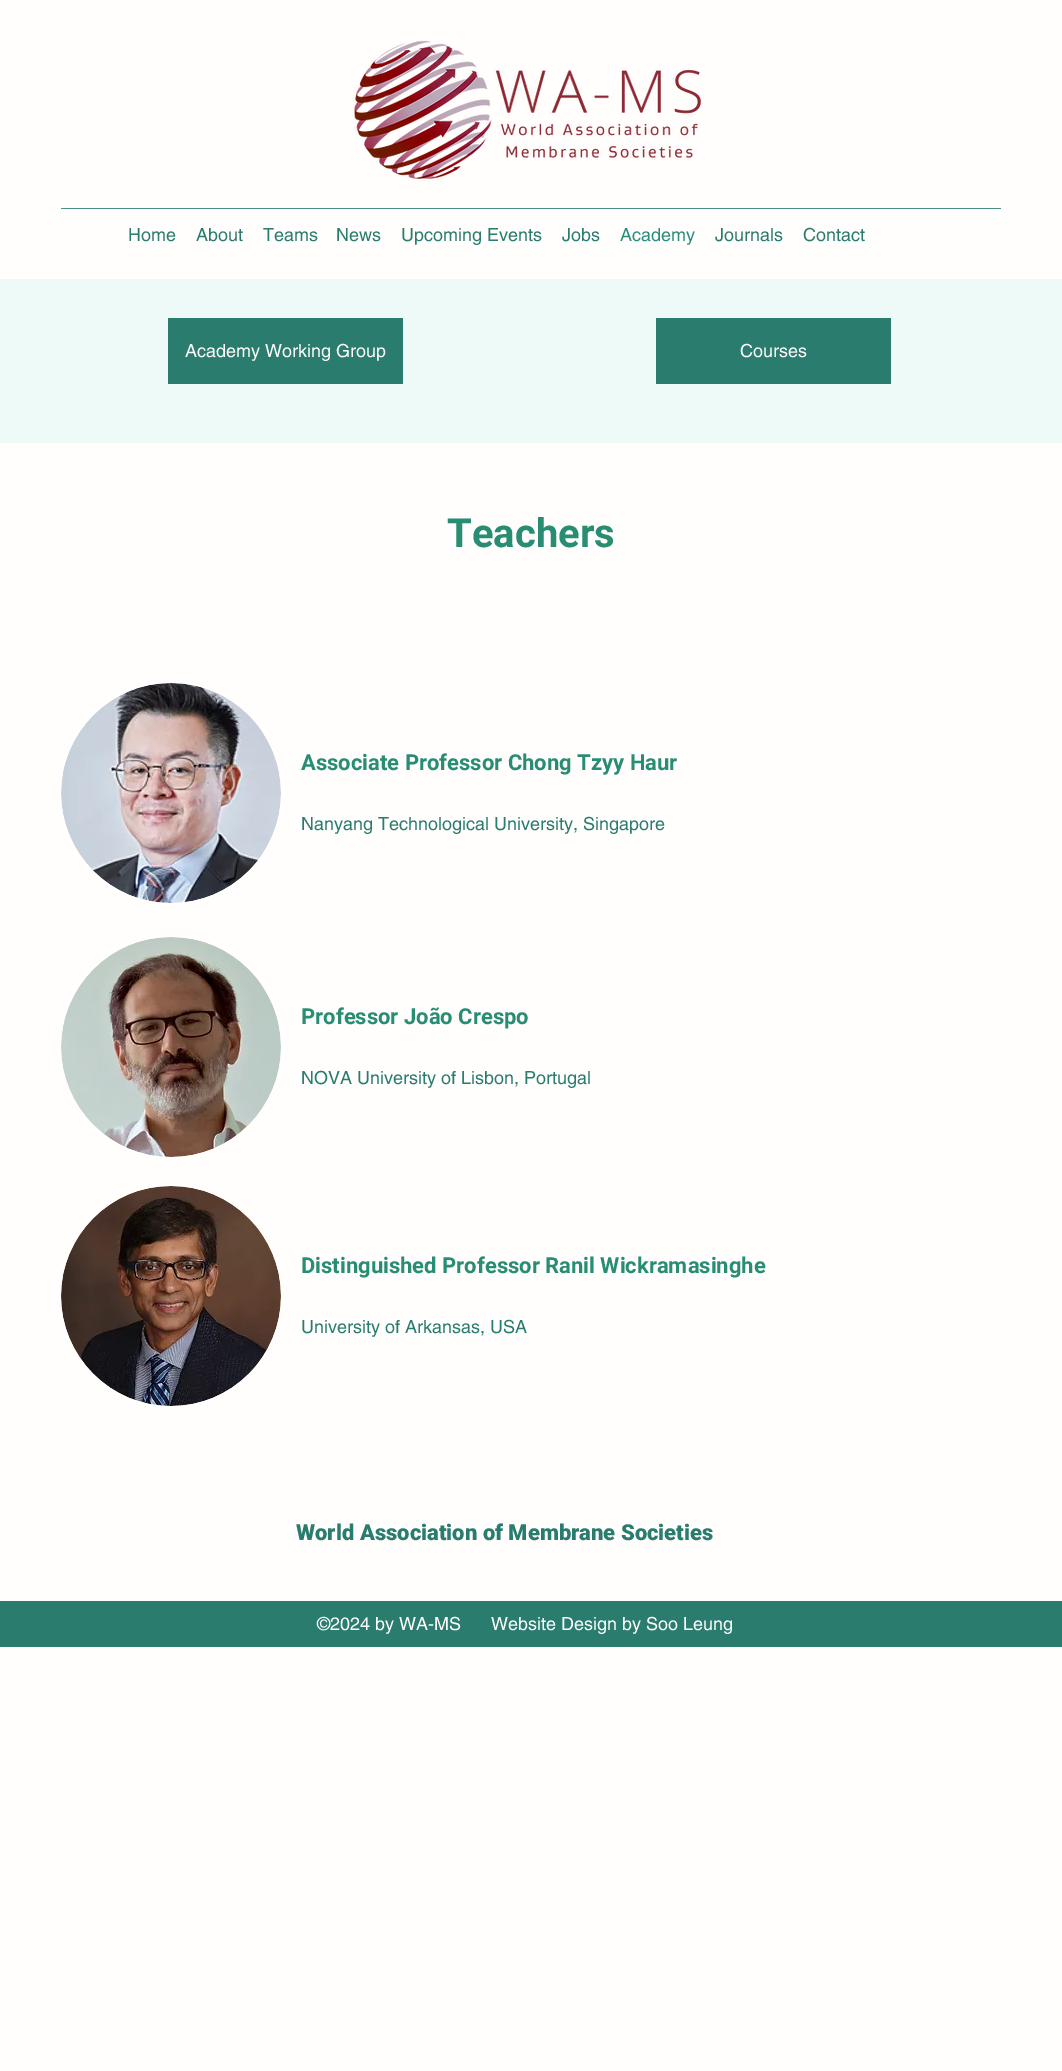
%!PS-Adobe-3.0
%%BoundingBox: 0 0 1062 2071
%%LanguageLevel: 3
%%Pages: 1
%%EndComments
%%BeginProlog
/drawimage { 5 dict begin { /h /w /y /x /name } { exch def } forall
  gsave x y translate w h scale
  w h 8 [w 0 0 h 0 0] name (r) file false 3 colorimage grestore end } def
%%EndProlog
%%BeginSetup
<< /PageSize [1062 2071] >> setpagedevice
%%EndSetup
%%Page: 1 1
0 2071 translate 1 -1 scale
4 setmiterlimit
1 0.996 0.988 setrgbcolor
0 0 1062 2071 rectfill
(images/1.raw) 352 40 349 141 drawimage
0.29 0.565 0.518 setrgbcolor
61 208 940 1 rectfill
0.933 0.98 0.969 setrgbcolor
0 279 1062 164 rectfill
0.165 0.486 0.435 setrgbcolor
168 318 235 66 rectfill
656 318 235 66 rectfill
(images/2.raw) 61 683 220 220 drawimage
(images/3.raw) 61 937 220 220 drawimage
(images/4.raw) 61 1186 220 220 drawimage
0 1601 1062 46 rectfill
/helvetica-Regular [18 0 0 -18 0 0] selectfont
128 241 moveto (Home) show
196 241 moveto (About) show
263 241 moveto (Teams) show
336 241 moveto (News) show
401 241 moveto (Upcoming Events) show
562 241 moveto (Jobs) show
0.173 0.553 0.494 setrgbcolor
620 241 moveto (Academy) show
0.165 0.486 0.435 setrgbcolor
715 241 moveto (Journals) show
803 241 moveto (Contact) show
1 0.996 0.988 setrgbcolor
185 357 moveto (Academy Working Group) show
740 357 moveto (Courses) show
/Roboto-Bold [40 0 0 -40 0 0] selectfont
0.161 0.553 0.455 setrgbcolor
447 547 moveto (Teachers) show
/Roboto-Bold [22 0 0 -22 0 0] selectfont
301 770 moveto (Associate Professor Chong Tzyy Haur) show
/helvetica-Regular [18 0 0 -18 0 0] selectfont
0.165 0.486 0.435 setrgbcolor
301 830 moveto (Nanyang Technological University, Singapore) show
/Roboto-Bold [22 0 0 -22 0 0] selectfont
0.161 0.553 0.455 setrgbcolor
301 1024 moveto (Professor João Crespo) show
/helvetica-Regular [18 0 0 -18 0 0] selectfont
0.165 0.486 0.435 setrgbcolor
301 1084 moveto (NOVA University of Lisbon, Portugal) show
/Roboto-Bold [22 0 0 -22 0 0] selectfont
0.161 0.553 0.455 setrgbcolor
301 1273 moveto (Distinguished Professor Ranil Wickramasinghe) show
/helvetica-Regular [18 0 0 -18 0 0] selectfont
0.165 0.486 0.435 setrgbcolor
301 1333 moveto (University of Arkansas, USA) show
/Roboto-Black [22 0 0 -22 0 0] selectfont
296 1540 moveto (World Association of Membrane Societies) show
/helvetica-Regular [18 0 0 -18 0 0] selectfont
1 0.996 0.988 setrgbcolor
317 1630 moveto (©2024 by WA-MS      Website Design by Soo Leung) show
showpage
%%EOF
